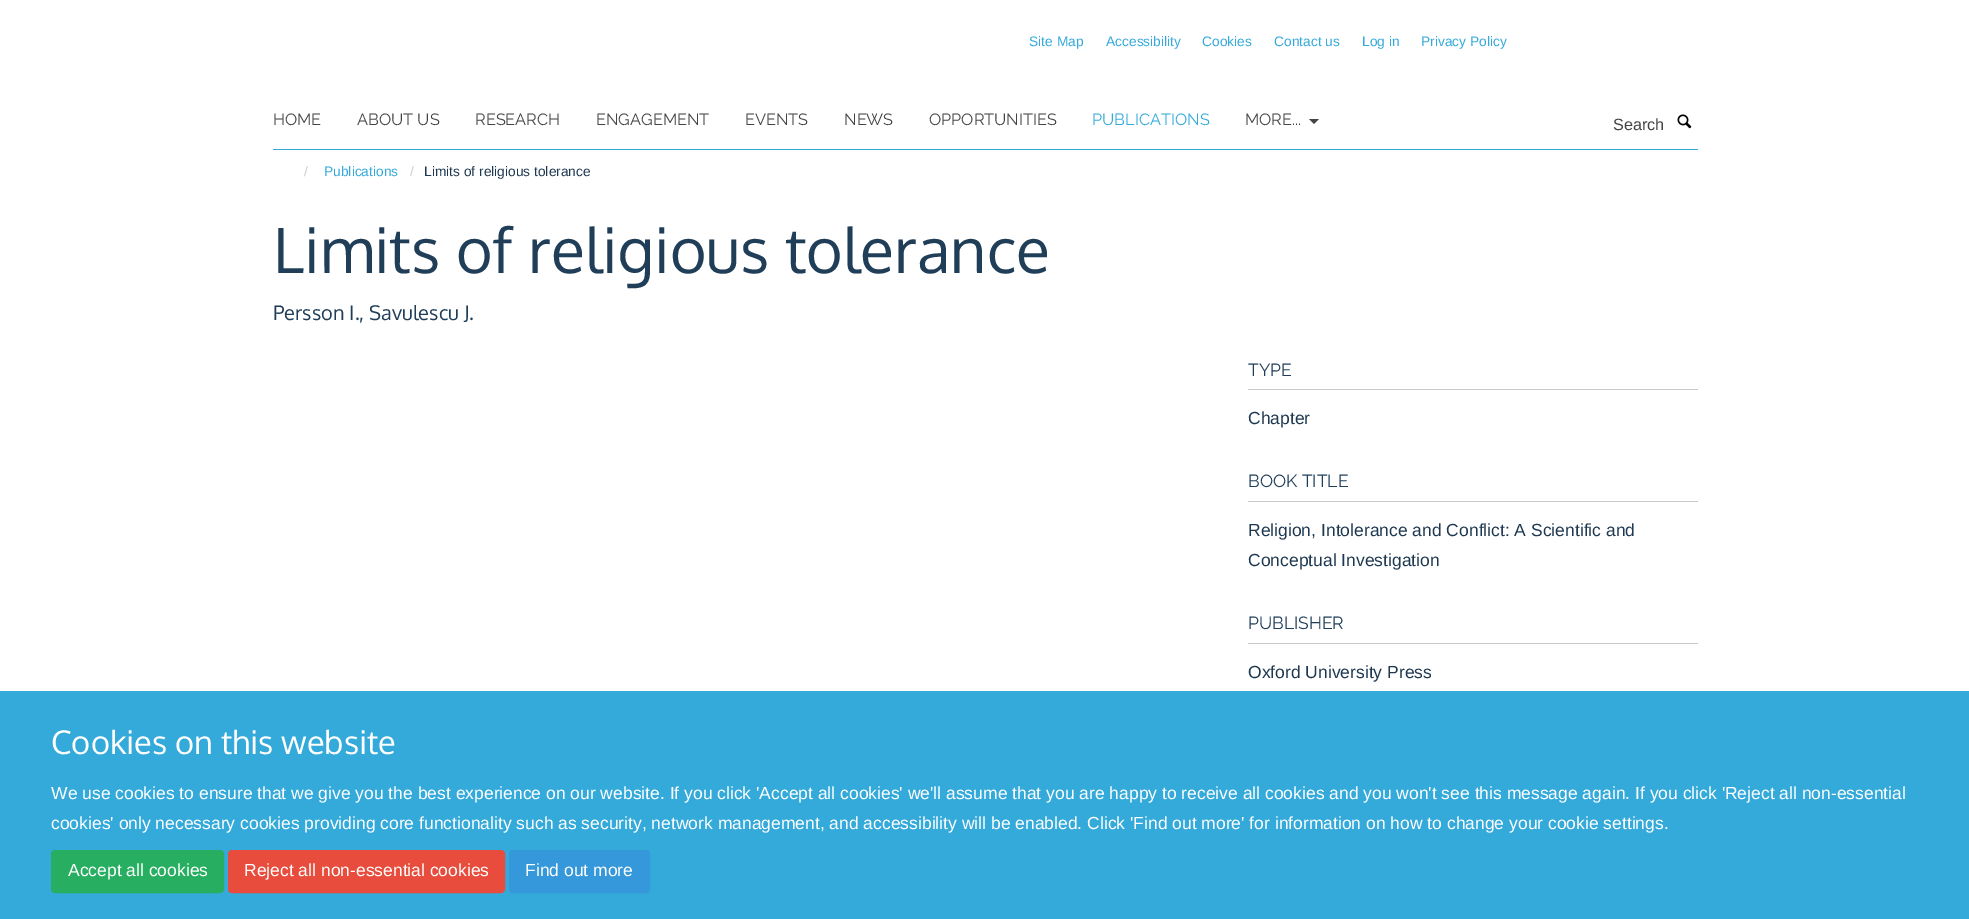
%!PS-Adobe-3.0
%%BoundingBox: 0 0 1969 919
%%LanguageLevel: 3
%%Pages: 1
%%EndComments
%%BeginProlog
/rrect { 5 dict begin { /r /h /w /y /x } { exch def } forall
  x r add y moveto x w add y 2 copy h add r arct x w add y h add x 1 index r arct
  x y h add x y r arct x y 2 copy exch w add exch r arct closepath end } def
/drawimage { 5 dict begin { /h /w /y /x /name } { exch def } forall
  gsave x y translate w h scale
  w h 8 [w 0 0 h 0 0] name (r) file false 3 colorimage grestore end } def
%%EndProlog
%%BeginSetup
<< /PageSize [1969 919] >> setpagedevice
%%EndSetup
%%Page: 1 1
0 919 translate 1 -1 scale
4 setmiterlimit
1 setgray
0 0 1969 919 rectfill
0.204 0.667 0.859 setrgbcolor
273 149 1425 1 rectfill
0.267 setgray
newpath 1309 119 moveto 1319 119 lineto 1314 124 lineto closepath fill
(images/1.raw) 1677 114 15 15 drawimage
0.776 0.792 0.812 setrgbcolor
1248 389 450 1 rectfill
1248 501 450 1 rectfill
1248 643 450 1 rectfill
0.204 0.667 0.859 setrgbcolor
0 691 1969 228 rectfill
0.153 0.682 0.376 setrgbcolor
51.5 850.5 172 42 3.5 rrect gsave fill grestore
stroke
0.906 0.298 0.235 setrgbcolor
228.5 850.5 276 42 3.5 rrect gsave fill grestore
stroke
0.204 0.596 0.859 setrgbcolor
509.5 850.5 140 42 3.5 rrect gsave fill grestore
stroke
/LiberationSans-Regular [13.75 0 0 -13.75 0 0] selectfont
0.204 0.667 0.859 setrgbcolor
1029 46 moveto (Site Map) show
1106 46 moveto (Accessibility) show
1202 46 moveto (Cookies) show
1274 46 moveto (Contact us) show
1362 46 moveto (Log in) show
1421 46 moveto (Privacy Policy) show
/Raleway-Thin [16.25 0 0 -16.25 0 0] selectfont
0.267 setgray
273 125 moveto (HOME) show
357 125 moveto (ABOUT US) show
475 125 moveto (RESEARCH) show
596 125 moveto (ENGAGEMENT) show
745 125 moveto (EVENTS) show
844 125 moveto (NEWS) show
929 125 moveto (OPPORTUNITIES) show
0.204 0.667 0.859 setrgbcolor
1092 125 moveto (PUBLICATIONS) show
0.267 setgray
1245 125 moveto (MORE...) show
/LiberationSans-Regular [16.25 0 0 -16.25 0 0] selectfont
1613 130 moveto (Search) show
/LiberationSans-Regular [13.75 0 0 -13.75 0 0] selectfont
0.8 setgray
304 176 moveto (/) show
0.204 0.667 0.859 setrgbcolor
324 176 moveto (Publications) show
0.8 setgray
410 176 moveto (/) show
0.114 0.22 0.314 setrgbcolor
424 176 moveto (Limits of religious tolerance) show
/Oxygen-Regular [62.5 0 0 -62.5 0 0] selectfont
0.125 0.243 0.345 setrgbcolor
273 273 moveto (Limits of religious tolerance) show
/Oxygen-Regular [20 0 0 -20 0 0] selectfont
273 320 moveto (Persson I., Savulescu J.) show
/Raleway-Thin [17.5 0 0 -17.5 0 0] selectfont
1248 376 moveto (TYPE) show
/LiberationSans-Regular [17.5 0 0 -17.5 0 0] selectfont
0.114 0.22 0.314 setrgbcolor
1248 424 moveto (Chapter) show
/Raleway-Thin [17.5 0 0 -17.5 0 0] selectfont
0.125 0.243 0.345 setrgbcolor
1248 487 moveto (BOOK TITLE) show
/LiberationSans-Regular [17.5 0 0 -17.5 0 0] selectfont
0.114 0.22 0.314 setrgbcolor
1248 536 moveto (Religion, Intolerance and Conflict: A Scientific and) show
1248 566 moveto (Conceptual Investigation) show
/Raleway-Thin [17.5 0 0 -17.5 0 0] selectfont
0.125 0.243 0.345 setrgbcolor
1248 629 moveto (PUBLISHER) show
/LiberationSans-Regular [17.5 0 0 -17.5 0 0] selectfont
0.114 0.22 0.314 setrgbcolor
1248 678 moveto (Oxford University Press) show
/Oxygen-Regular [32.5 0 0 -32.5 0 0] selectfont
1 setgray
51 754 moveto (Cookies on this website) show
/LiberationSans-Regular [17.5 0 0 -17.5 0 0] selectfont
51 799 moveto (We use cookies to ensure that we give you the best experience on our website. If you click 'Accept all cookies' we'll assume that you are happy to receive all cookies and you won't see this message again. If you click 'Reject all non-essential) show
51 829 moveto (cookies' only necessary cookies providing core functionality such as security, network management, and accessibility will be enabled. Click 'Find out more' for information on how to change your cookie settings.) show
68 876 moveto (Accept all cookies) show
244 876 moveto (Reject all non-essential cookies) show
525 876 moveto (Find out more) show
showpage
%%EOF
